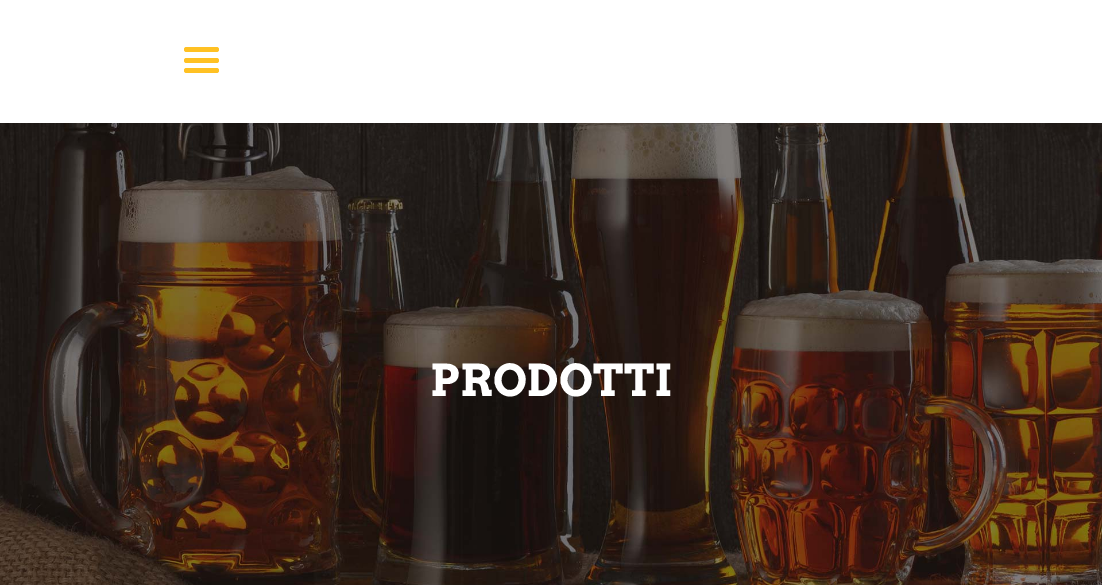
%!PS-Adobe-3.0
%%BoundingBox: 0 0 1102 585
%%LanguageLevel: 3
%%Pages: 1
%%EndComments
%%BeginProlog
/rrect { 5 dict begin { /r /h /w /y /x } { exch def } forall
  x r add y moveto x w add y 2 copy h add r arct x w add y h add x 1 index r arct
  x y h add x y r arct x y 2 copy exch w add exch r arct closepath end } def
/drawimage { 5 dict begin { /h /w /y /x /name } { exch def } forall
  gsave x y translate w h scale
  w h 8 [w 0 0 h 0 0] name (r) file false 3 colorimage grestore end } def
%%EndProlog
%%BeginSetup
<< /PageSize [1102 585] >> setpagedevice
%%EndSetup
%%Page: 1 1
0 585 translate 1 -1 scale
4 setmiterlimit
1 setgray
0 0 1102 585 rectfill
1 0.757 0.137 setrgbcolor
184 47 35 5 2.5 rrect fill
184 58 35 5 2.5 rrect fill
184 68 35 5 2.5 rrect fill
(images/1.raw) 0 123 1102 462 drawimage
/Arvo-Bold [43.75 0 0 -43.75 0 0] selectfont
1 setgray
430 396 moveto (PRODOTTI) show
showpage
%%EOF
